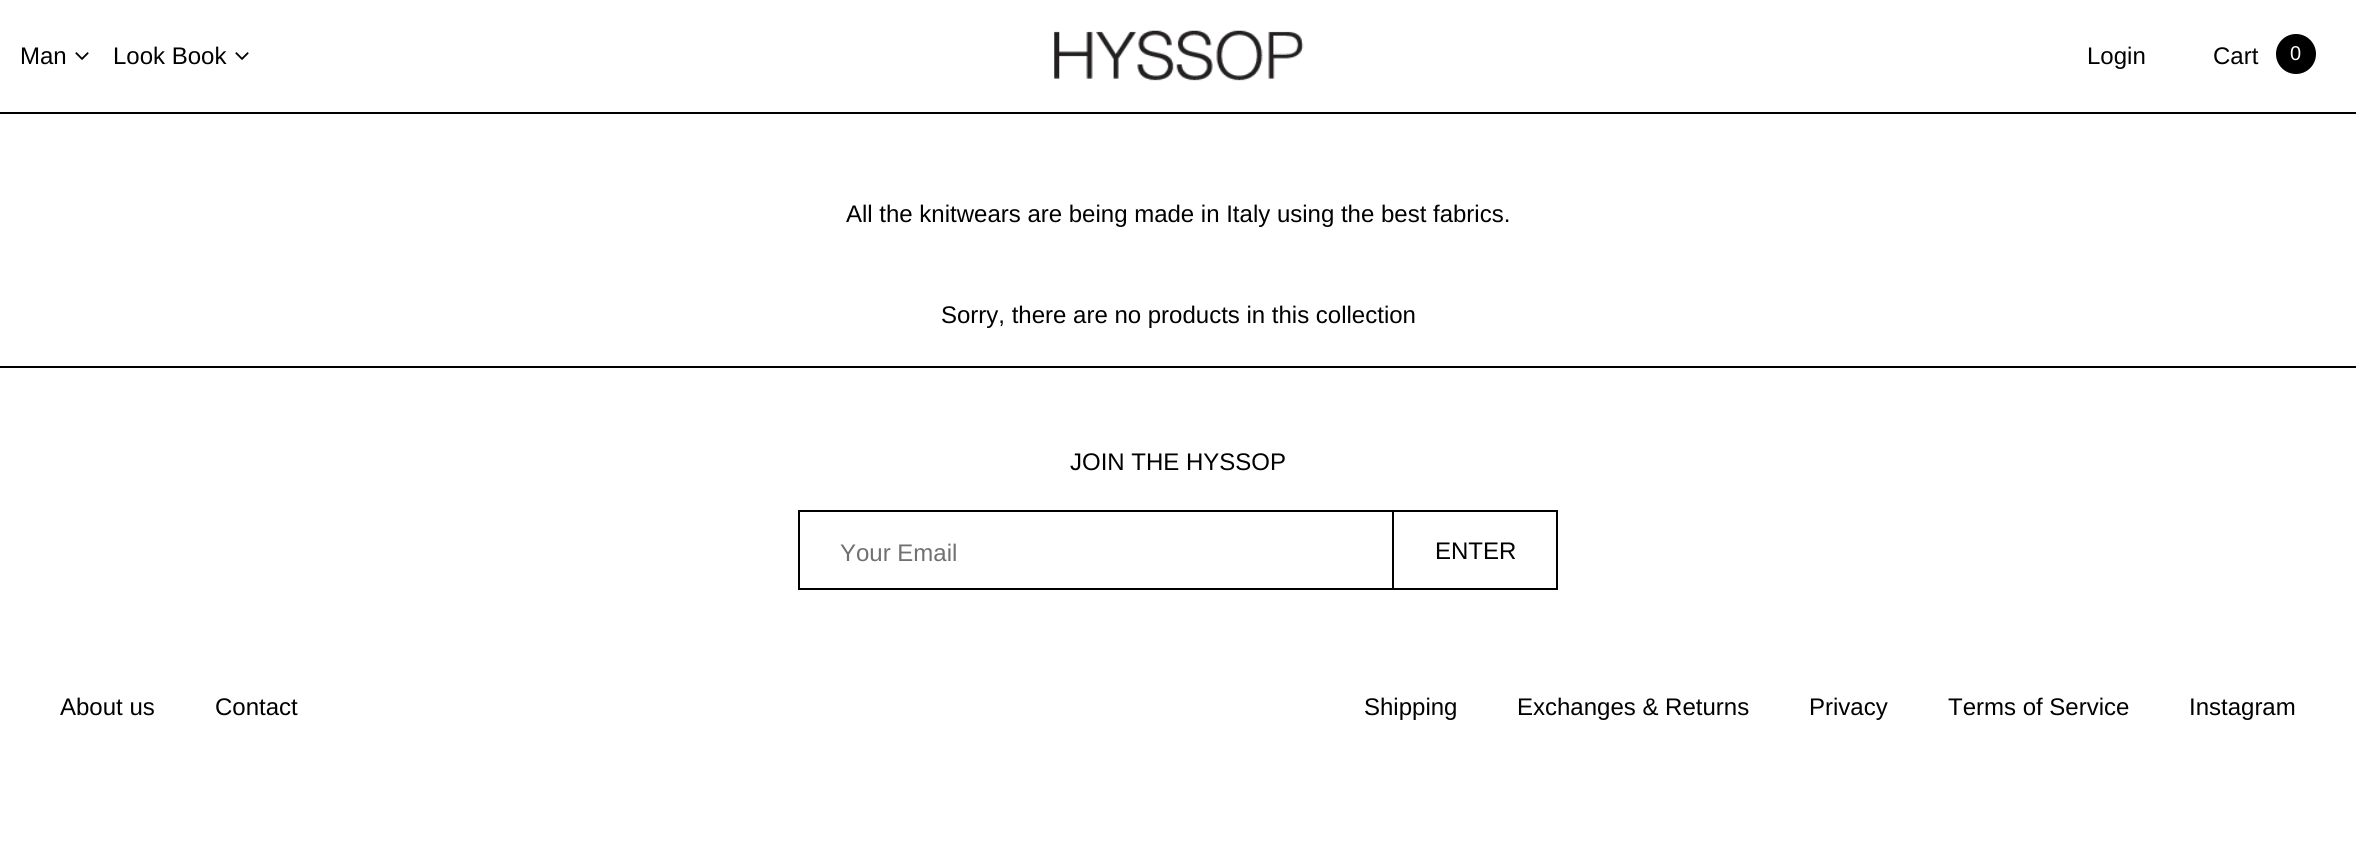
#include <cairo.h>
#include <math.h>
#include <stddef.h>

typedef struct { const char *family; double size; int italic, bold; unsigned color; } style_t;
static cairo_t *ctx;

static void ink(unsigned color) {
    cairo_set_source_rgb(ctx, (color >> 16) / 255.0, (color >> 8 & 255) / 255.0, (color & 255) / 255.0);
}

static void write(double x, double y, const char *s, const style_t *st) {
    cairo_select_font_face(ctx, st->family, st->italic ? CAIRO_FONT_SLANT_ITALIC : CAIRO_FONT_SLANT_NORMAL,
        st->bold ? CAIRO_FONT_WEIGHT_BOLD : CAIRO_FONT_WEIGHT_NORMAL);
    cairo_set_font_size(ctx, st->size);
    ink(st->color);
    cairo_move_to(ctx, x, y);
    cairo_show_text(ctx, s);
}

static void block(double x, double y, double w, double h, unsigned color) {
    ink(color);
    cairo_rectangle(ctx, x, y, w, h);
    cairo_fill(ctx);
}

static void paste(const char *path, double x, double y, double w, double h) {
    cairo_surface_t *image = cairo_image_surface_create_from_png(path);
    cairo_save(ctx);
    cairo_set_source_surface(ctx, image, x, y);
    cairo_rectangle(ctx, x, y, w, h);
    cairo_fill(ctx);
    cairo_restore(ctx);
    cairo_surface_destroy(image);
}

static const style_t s1 = {"Liberation Sans", 24, 0, 0, 0x000000};
static const style_t s2 = {"Liberation Sans", 20, 0, 0, 0xffffff};
static const style_t s3 = {"Liberation Sans", 24, 0, 0, 0x707070};

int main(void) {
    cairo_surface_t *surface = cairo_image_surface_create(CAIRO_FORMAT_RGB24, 2356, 843);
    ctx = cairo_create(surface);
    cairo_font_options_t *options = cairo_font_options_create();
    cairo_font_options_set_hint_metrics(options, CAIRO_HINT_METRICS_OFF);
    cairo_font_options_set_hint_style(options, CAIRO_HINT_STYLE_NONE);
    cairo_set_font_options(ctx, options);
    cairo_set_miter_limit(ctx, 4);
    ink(0xffffff);
    cairo_paint(ctx);
    block(0, 112, 2356, 2, 0x000000);
    write(20, 64, "Man", &s1);
    paste("pic1.png", 75, 52, 14, 8);
    write(113, 64, "Look Book", &s1);
    paste("pic1.png", 235, 52, 14, 8);
    paste("pic2.png", 1054, 30, 250, 51);
    write(2087, 64, "Login", &s1);
    write(2213, 64, "Cart", &s1);
    cairo_new_path(ctx);
    cairo_arc(ctx, 2296, 54, 20, 0, 2 * M_PI);
    cairo_fill(ctx);
    write(2290, 60, "0", &s2);
    write(846, 222, "All the knitwears are being made in Italy using the best fabrics.", &s1);
    write(941, 323, "Sorry, there are no products in this collection", &s1);
    block(0, 366, 2356, 2, 0x000000);
    write(1070, 470, "JOIN THE HYSSOP", &s1);
    cairo_rectangle(ctx, 799, 511, 758, 78);
    cairo_stroke(ctx);
    write(840, 561, "Your Email", &s3);
    cairo_rectangle(ctx, 1393, 511, 164, 78);
    ink(0x000000);
    cairo_stroke(ctx);
    write(1435, 559, "ENTER", &s1);
    write(60, 715, "About us", &s1);
    write(215, 715, "Contact", &s1);
    write(1364, 715, "Shipping", &s1);
    write(1517, 715, "Exchanges & Returns", &s1);
    write(1809, 715, "Privacy", &s1);
    write(1948, 715, "Terms of Service", &s1);
    write(2189, 715, "Instagram", &s1);
    cairo_surface_write_to_png(surface, "screenshot.png");
    cairo_font_options_destroy(options);
    cairo_destroy(ctx);
    cairo_surface_destroy(surface);
    return 0;
}
